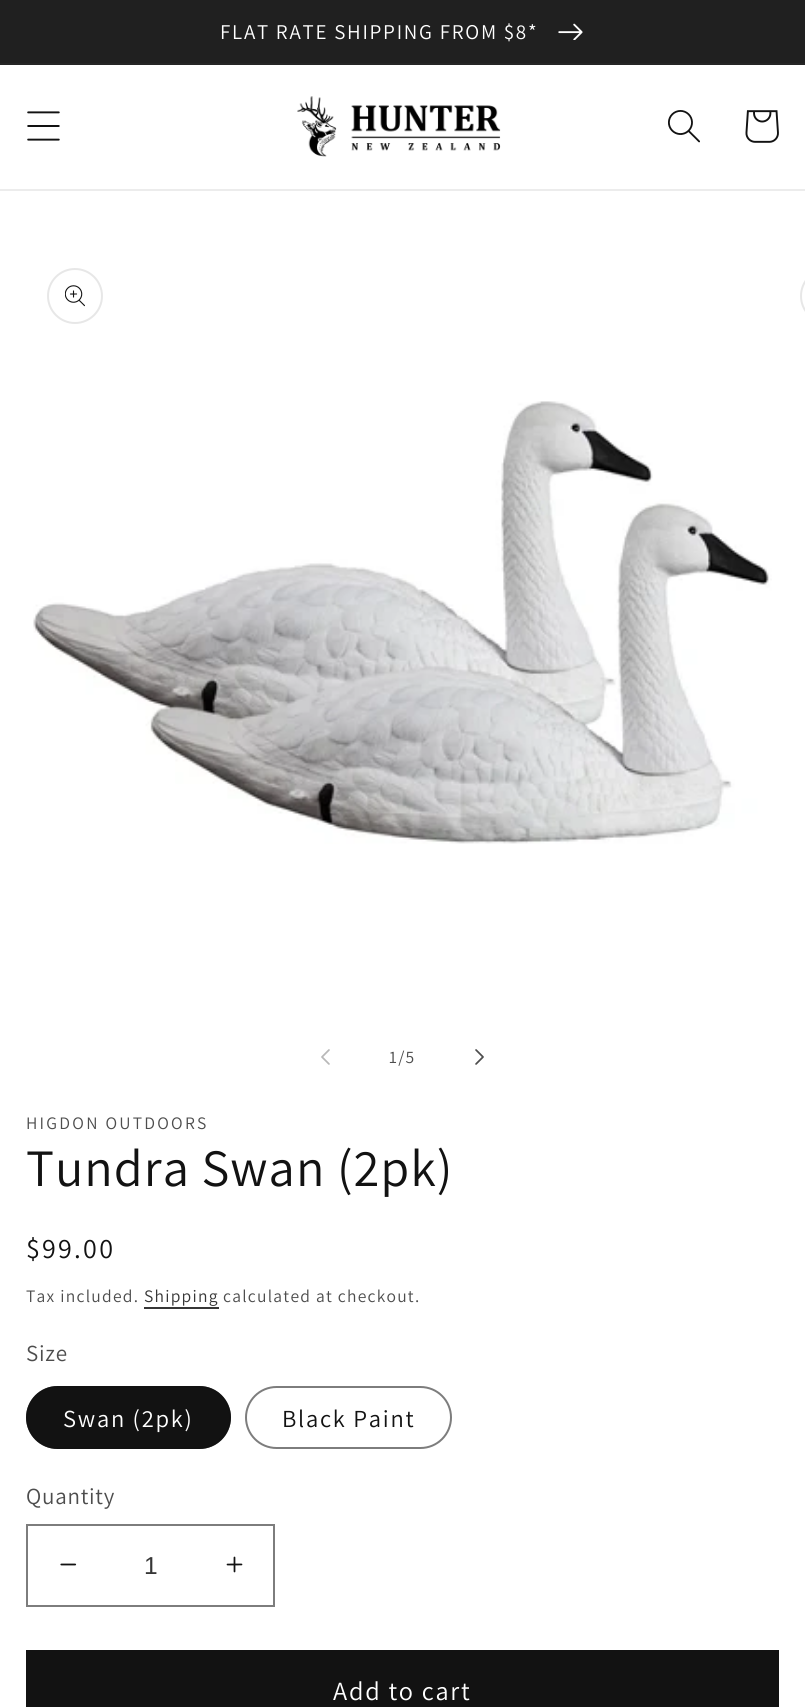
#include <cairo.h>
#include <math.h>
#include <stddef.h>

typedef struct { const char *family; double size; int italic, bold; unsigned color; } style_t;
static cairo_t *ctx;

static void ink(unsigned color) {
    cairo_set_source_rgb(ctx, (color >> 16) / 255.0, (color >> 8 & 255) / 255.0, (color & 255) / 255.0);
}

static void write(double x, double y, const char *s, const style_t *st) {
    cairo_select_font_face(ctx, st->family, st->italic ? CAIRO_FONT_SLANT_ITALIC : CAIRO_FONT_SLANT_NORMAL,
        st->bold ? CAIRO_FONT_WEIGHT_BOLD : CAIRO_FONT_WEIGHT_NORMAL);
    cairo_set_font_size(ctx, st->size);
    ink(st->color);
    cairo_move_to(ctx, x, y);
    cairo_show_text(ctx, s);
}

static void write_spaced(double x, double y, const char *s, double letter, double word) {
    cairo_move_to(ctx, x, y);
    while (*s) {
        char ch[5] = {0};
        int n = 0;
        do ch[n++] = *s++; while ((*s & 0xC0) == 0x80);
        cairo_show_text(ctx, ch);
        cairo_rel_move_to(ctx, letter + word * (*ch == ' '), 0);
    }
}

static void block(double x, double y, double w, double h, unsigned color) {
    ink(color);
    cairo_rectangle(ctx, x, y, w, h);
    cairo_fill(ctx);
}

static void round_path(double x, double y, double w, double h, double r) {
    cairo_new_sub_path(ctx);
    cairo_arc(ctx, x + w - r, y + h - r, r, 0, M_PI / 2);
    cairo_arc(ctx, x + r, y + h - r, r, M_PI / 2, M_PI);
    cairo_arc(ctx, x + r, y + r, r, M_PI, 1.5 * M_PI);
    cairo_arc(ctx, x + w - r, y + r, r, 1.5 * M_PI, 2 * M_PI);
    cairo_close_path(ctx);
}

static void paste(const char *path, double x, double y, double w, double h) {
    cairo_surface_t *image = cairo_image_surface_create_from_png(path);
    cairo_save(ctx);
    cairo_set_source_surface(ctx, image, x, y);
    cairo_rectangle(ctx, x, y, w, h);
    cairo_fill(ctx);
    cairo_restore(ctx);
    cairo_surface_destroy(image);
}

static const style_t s1 = {"Liberation Sans", 24.5, 0, 0, 0x363636};

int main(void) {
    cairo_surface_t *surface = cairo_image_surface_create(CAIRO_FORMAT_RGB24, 805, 1707);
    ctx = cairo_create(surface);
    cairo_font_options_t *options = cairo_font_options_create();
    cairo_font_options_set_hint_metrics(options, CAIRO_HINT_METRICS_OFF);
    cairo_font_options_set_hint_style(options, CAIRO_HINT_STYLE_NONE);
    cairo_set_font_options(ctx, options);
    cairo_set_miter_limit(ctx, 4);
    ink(0xffffff);
    cairo_paint(ctx);
    block(0, 63, 805, 2, 0x252525);
    block(0, 0, 805, 63, 0x202020);
    cairo_select_font_face(ctx, "Assistant", CAIRO_FONT_SLANT_NORMAL, CAIRO_FONT_WEIGHT_NORMAL);
    cairo_set_font_size(ctx, 21);
    ink(0xffffff);
    write_spaced(220, 39, "FLAT RATE SHIPPING FROM $8*", 1.75, 0);
    paste("pic1.png", 558, 23, 25, 17);
    block(0, 189, 805, 2, 0xececec);
    paste("pic2.png", 27, 111, 33, 30);
    paste("pic3.png", 297, 96, 204, 61);
    paste("pic4.png", 668, 110, 32, 33);
    paste("pic5.png", 745, 110, 34, 33);
    cairo_arc(ctx, 75, 296, 27, 0, 2 * M_PI);
    ink(0xe7e7e7);
    cairo_stroke(ctx);
    paste("pic6.png", 65, 285, 20, 22);
    paste("pic7.png", 33, 401, 739, 443);
    round_path(801, 269, 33, 54, 27);
    cairo_stroke(ctx);
    paste("pic8.png", 321, 1049, 9, 16);
    cairo_set_font_size(ctx, 17.5);
    ink(0x4d4d4d);
    write_spaced(389, 1063, "1/5", 1.25, 0);
    paste("pic9.png", 475, 1049, 9, 16);
    write_spaced(26, 1129, "HIGDON OUTDOORS", 2.25, 0);
    cairo_set_font_size(ctx, 52.5);
    ink(0x121212);
    write_spaced(26, 1186, "Tundra Swan (2pk)", 1, 0);
    cairo_set_font_size(ctx, 28);
    write_spaced(26, 1258, "$99.00", 2.25, 0);
    cairo_set_font_size(ctx, 17.5);
    ink(0x4d4d4d);
    write_spaced(26, 1302, "Tax included.", 1.25, 0);
    ink(0x363636);
    write_spaced(144, 1302, "Shipping", 1.25, 0);
    block(144, 1307, 75, 2, 0x363636);
    ink(0x4d4d4d);
    write_spaced(223, 1302, "calculated at checkout.", 1.25, 0);
    cairo_set_font_size(ctx, 23);
    write_spaced(26, 1361, "Size", 0.75, 0);
    ink(0x121212);
    round_path(26, 1386, 205, 63, 31.5);
    cairo_fill(ctx);
    round_path(27, 1387, 203, 61, 30.5);
    cairo_set_source_rgba(ctx, 0.071, 0.071, 0.071, 0.55);
    cairo_stroke(ctx);
    cairo_set_font_size(ctx, 24.5);
    ink(0xffffff);
    write_spaced(63, 1427, "Swan (2pk)", 1.75, 0);
    round_path(246, 1387, 205, 61, 30.5);
    ink(0x7d7d7d);
    cairo_stroke(ctx);
    ink(0x121212);
    write_spaced(282, 1427, "Black Paint", 1.75, 0);
    cairo_set_font_size(ctx, 23);
    ink(0x4d4d4d);
    write_spaced(26, 1504, "Quantity", 0.75, 0);
    paste("pic10.png", 60, 1563, 17, 3);
    paste("pic11.png", 226, 1556, 17, 17);
    cairo_rectangle(ctx, 27, 1525, 247, 81);
    ink(0x7d7d7d);
    cairo_stroke(ctx);
    write(144, 1574, "1", &s1);
    block(26, 1650, 753, 57, 0x121212);
    cairo_select_font_face(ctx, "Assistant", CAIRO_FONT_SLANT_NORMAL, CAIRO_FONT_WEIGHT_NORMAL);
    cairo_set_font_size(ctx, 26.25);
    ink(0xffffff);
    write_spaced(333, 1700, "Add to cart", 1.75, 0);
    cairo_surface_write_to_png(surface, "screenshot.png");
    cairo_font_options_destroy(options);
    cairo_destroy(ctx);
    cairo_surface_destroy(surface);
    return 0;
}
